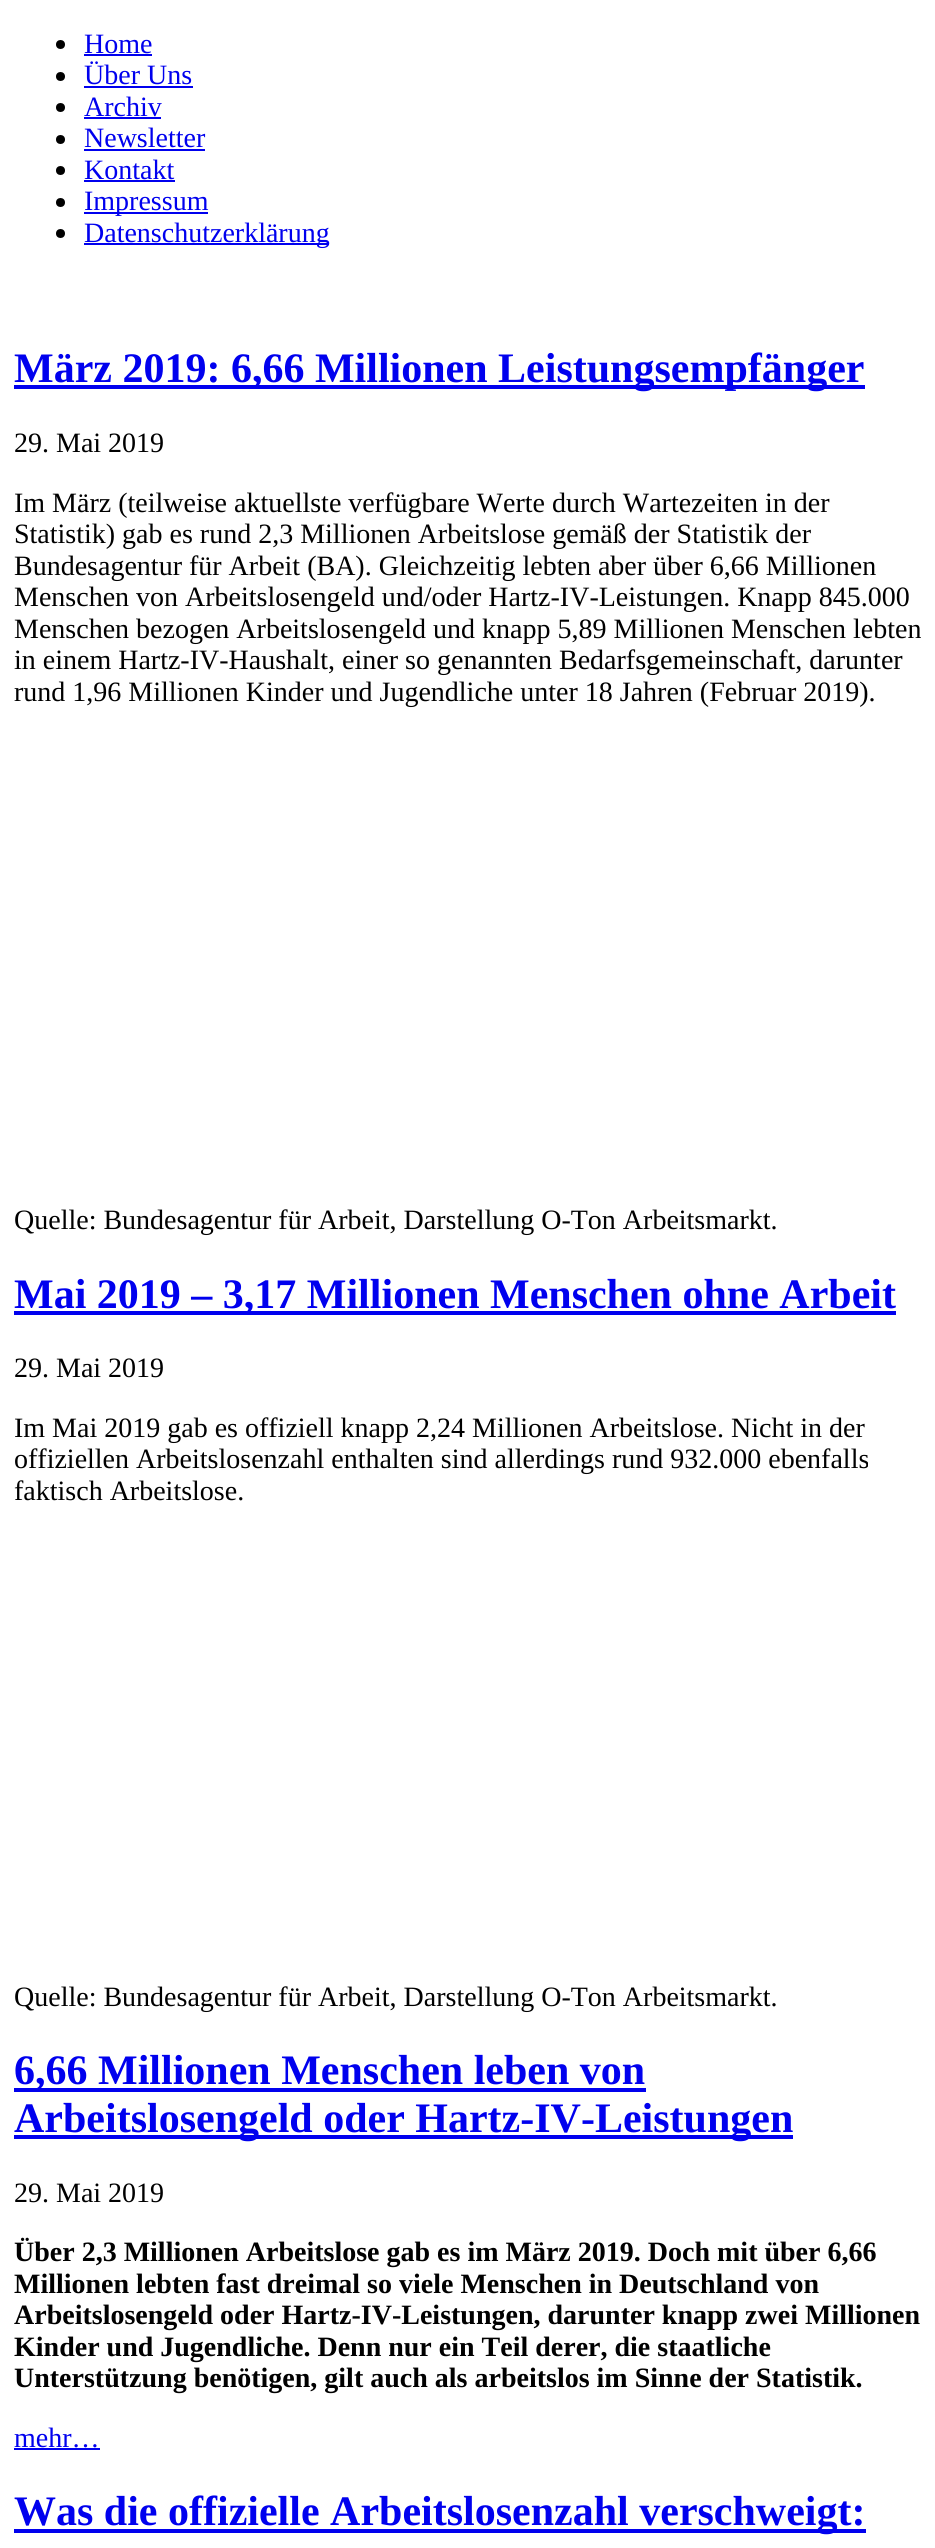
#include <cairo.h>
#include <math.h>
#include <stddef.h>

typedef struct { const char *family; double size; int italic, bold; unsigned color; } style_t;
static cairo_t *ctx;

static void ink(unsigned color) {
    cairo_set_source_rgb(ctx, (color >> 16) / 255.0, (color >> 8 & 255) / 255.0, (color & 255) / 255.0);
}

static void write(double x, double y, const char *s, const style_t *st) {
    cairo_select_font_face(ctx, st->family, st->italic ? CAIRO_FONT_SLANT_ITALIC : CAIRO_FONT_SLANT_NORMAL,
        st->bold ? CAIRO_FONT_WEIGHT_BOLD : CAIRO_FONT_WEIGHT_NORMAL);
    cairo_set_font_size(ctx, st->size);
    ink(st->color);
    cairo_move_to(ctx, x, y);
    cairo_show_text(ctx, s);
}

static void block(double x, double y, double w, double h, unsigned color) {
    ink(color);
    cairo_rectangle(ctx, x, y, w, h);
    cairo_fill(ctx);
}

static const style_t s1 = {"Liberation Serif", 28, 0, 0, 0x0000ee};
static const style_t s2 = {"Liberation Serif", 42, 0, 1, 0x0000ee};
static const style_t s3 = {"Liberation Serif", 28, 0, 0, 0x000000};
static const style_t s4 = {"Liberation Serif", 28, 0, 1, 0x000000};

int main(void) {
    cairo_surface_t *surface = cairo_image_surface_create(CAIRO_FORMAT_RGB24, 935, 2548);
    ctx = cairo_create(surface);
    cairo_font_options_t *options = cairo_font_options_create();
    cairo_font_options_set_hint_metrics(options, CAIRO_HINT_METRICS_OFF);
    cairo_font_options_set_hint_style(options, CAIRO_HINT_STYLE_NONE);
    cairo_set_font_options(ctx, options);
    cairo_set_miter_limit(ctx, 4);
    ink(0xffffff);
    cairo_paint(ctx);
    ink(0x000000);
    cairo_arc(ctx, 60.5, 44.5, 4.5, 0, 2 * M_PI);
    cairo_fill(ctx);
    write(84, 53, "Home", &s1);
    block(84, 54, 68, 2, 0x0000ee);
    ink(0x000000);
    cairo_new_path(ctx);
    cairo_arc(ctx, 60.5, 76.5, 4.5, 0, 2 * M_PI);
    cairo_fill(ctx);
    write(84, 84, "Über Uns", &s1);
    block(84, 86, 109, 2, 0x0000ee);
    ink(0x000000);
    cairo_new_path(ctx);
    cairo_arc(ctx, 60.5, 107.5, 4.5, 0, 2 * M_PI);
    cairo_fill(ctx);
    write(84, 116, "Archiv", &s1);
    block(84, 117, 77, 2, 0x0000ee);
    ink(0x000000);
    cairo_new_path(ctx);
    cairo_arc(ctx, 60.5, 139.5, 4.5, 0, 2 * M_PI);
    cairo_fill(ctx);
    write(84, 147, "Newsletter", &s1);
    block(84, 149, 121, 2, 0x0000ee);
    ink(0x000000);
    cairo_new_path(ctx);
    cairo_arc(ctx, 60.5, 170.5, 4.5, 0, 2 * M_PI);
    cairo_fill(ctx);
    write(84, 179, "Kontakt", &s1);
    block(84, 180, 91, 2, 0x0000ee);
    ink(0x000000);
    cairo_new_path(ctx);
    cairo_arc(ctx, 60.5, 202.5, 4.5, 0, 2 * M_PI);
    cairo_fill(ctx);
    block(84, 212, 124, 2, 0x0000ee);
    write(84, 210, "Impressum", &s1);
    ink(0x000000);
    cairo_new_path(ctx);
    cairo_arc(ctx, 60.5, 233.5, 4.5, 0, 2 * M_PI);
    cairo_fill(ctx);
    block(84, 243, 245, 2, 0x0000ee);
    write(84, 242, "Datenschutzerklärung", &s1);
    block(14, 385, 851, 4, 0x0000ee);
    write(14, 382, "März 2019: 6,66 Millionen Leistungsempfänger", &s2);
    write(14, 452, "29. Mai 2019", &s3);
    write(14, 512, "Im März (teilweise aktuellste verfügbare Werte durch Wartezeiten in der", &s3);
    write(14, 543, "Statistik) gab es rund 2,3 Millionen Arbeitslose gemäß der Statistik der", &s3);
    write(14, 575, "Bundesagentur für Arbeit (BA). Gleichzeitig lebten aber über 6,66 Millionen", &s3);
    write(14, 606, "Menschen von Arbeitslosengeld und/oder Hartz-IV-Leistungen. Knapp 845.000", &s3);
    write(14, 638, "Menschen bezogen Arbeitslosengeld und knapp 5,89 Millionen Menschen lebten", &s3);
    write(14, 669, "in einem Hartz-IV-Haushalt, einer so genannten Bedarfsgemeinschaft, darunter", &s3);
    write(14, 701, "rund 1,96 Millionen Kinder und Jugendliche unter 18 Jahren (Februar 2019).", &s3);
    write(14, 1229, "Quelle: Bundesagentur für Arbeit, Darstellung O-Ton Arbeitsmarkt.", &s3);
    block(14, 1311, 882, 4, 0x0000ee);
    write(14, 1308, "Mai 2019 – 3,17 Millionen Menschen ohne Arbeit", &s2);
    write(14, 1377, "29. Mai 2019", &s3);
    write(14, 1437, "Im Mai 2019 gab es offiziell knapp 2,24 Millionen Arbeitslose. Nicht in der", &s3);
    write(14, 1468, "offiziellen Arbeitslosenzahl enthalten sind allerdings rund 932.000 ebenfalls", &s3);
    write(14, 1500, "faktisch Arbeitslose.", &s3);
    write(14, 2006, "Quelle: Bundesagentur für Arbeit, Darstellung O-Ton Arbeitsmarkt.", &s3);
    block(14, 2088, 632, 4, 0x0000ee);
    write(14, 2084, "6,66 Millionen Menschen leben von", &s2);
    block(14, 2135, 779, 4, 0x0000ee);
    write(14, 2132, "Arbeitslosengeld oder Hartz-IV-Leistungen", &s2);
    write(14, 2202, "29. Mai 2019", &s3);
    write(14, 2261, "Über 2,3 Millionen Arbeitslose gab es im März 2019. Doch mit über 6,66", &s4);
    write(14, 2293, "Millionen lebten fast dreimal so viele Menschen in Deutschland von", &s4);
    write(14, 2324, "Arbeitslosengeld oder Hartz-IV-Leistungen, darunter knapp zwei Millionen", &s4);
    write(14, 2356, "Kinder und Jugendliche. Denn nur ein Teil derer, die staatliche", &s4);
    write(14, 2387, "Unterstützung benötigen, gilt auch als arbeitslos im Sinne der Statistik.", &s4);
    write(14, 2447, "mehr…", &s1);
    block(14, 2448, 86, 2, 0x0000ee);
    block(14, 2529, 852, 4, 0x0000ee);
    write(14, 2525, "Was die offizielle Arbeitslosenzahl verschweigt:", &s2);
    cairo_surface_write_to_png(surface, "screenshot.png");
    cairo_font_options_destroy(options);
    cairo_destroy(ctx);
    cairo_surface_destroy(surface);
    return 0;
}
